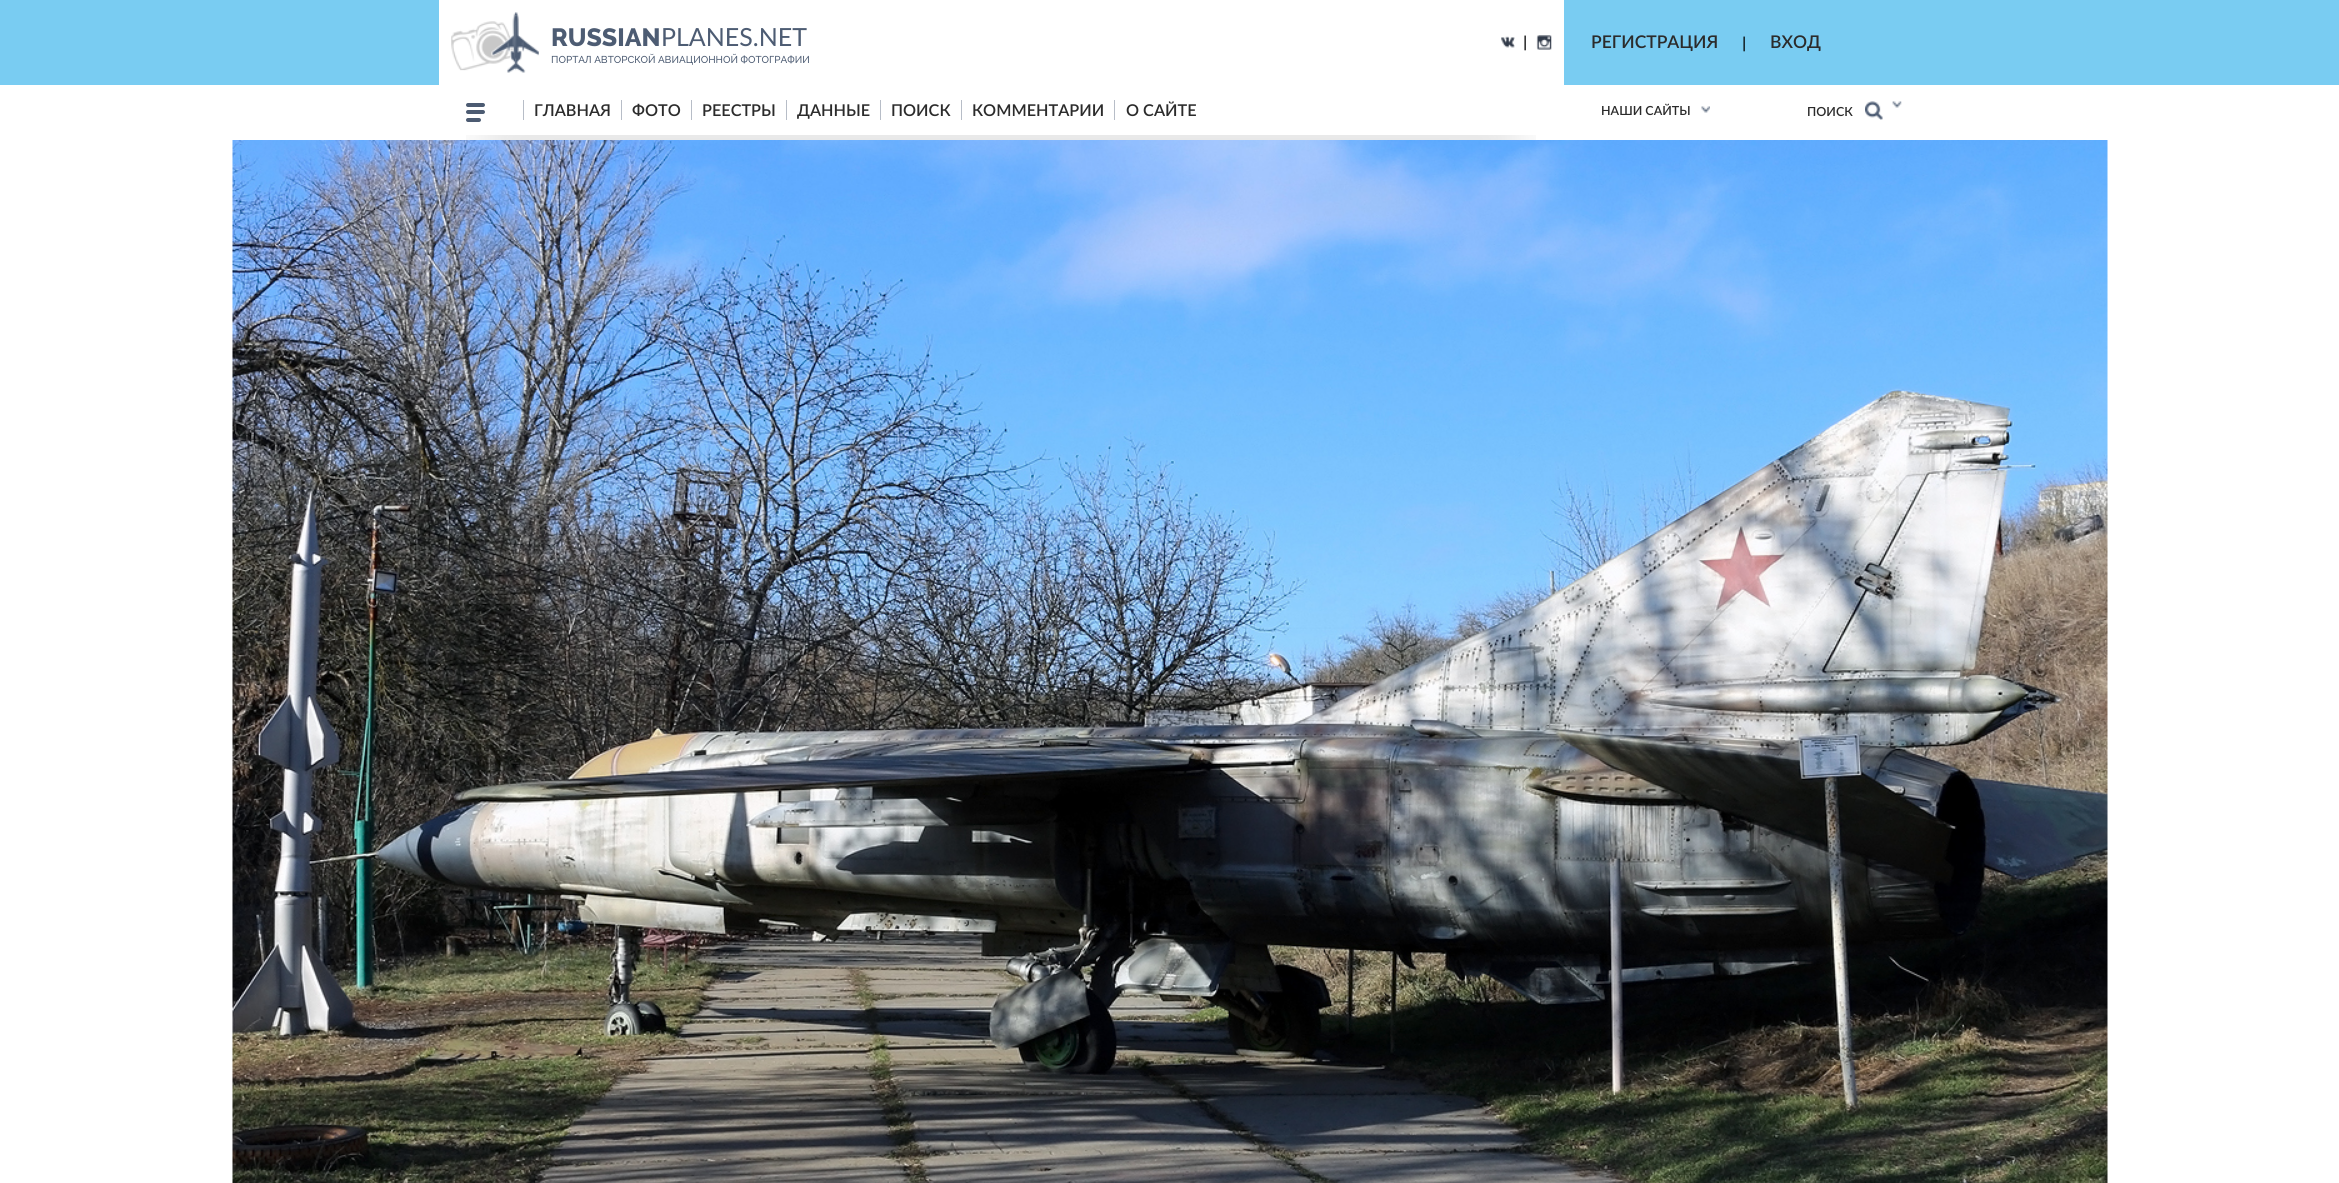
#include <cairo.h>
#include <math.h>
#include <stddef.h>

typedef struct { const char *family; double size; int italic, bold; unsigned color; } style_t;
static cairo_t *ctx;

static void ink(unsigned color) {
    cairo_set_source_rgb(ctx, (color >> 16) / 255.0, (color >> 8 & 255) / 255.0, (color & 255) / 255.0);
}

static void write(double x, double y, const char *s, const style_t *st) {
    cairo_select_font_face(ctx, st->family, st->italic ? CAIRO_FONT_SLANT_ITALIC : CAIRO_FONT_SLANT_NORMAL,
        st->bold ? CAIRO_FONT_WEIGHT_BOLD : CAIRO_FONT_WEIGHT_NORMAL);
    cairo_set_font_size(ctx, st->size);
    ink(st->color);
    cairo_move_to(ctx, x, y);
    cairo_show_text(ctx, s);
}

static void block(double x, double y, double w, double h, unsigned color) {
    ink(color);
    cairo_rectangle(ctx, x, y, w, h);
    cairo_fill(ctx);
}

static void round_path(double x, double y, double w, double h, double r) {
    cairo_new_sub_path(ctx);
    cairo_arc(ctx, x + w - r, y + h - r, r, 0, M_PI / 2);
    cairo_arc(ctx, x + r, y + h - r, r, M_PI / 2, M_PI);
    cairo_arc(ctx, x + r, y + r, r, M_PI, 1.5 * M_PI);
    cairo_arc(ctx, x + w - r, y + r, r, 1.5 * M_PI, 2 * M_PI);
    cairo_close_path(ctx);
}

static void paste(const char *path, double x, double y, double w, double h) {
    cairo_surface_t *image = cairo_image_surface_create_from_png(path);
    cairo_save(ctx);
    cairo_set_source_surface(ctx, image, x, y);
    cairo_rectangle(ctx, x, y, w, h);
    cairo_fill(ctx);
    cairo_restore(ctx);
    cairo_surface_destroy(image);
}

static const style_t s1 = {"Raleway ExtraBold", 25, 0, 0, 0x4d5c73};
static const style_t s2 = {"Lato", 25, 0, 0, 0x4d5c73};
static const style_t s3 = {"Raleway Medium", 10, 0, 0, 0x4d5c73};
static const style_t s4 = {"Roboto", 17.5, 0, 0, 0x000000};
static const style_t s5 = {"Lato SemiBold", 17.5, 0, 0, 0x2b2b2b};
static const style_t s6 = {"Lato SemiBold", 16.25, 0, 0, 0x2b2b2b};
static const style_t s7 = {"Lato SemiBold", 12.5, 0, 0, 0x2b2b2b};

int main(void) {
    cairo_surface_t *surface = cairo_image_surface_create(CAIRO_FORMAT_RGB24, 2339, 1183);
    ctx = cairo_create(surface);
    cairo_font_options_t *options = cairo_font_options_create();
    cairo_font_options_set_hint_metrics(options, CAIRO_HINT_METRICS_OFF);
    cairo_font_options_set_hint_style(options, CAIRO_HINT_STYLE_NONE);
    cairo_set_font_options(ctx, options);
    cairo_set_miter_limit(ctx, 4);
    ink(0xffffff);
    cairo_paint(ctx);
    block(0, 0, 2339, 85, 0x79ccf2);
    block(439, 0, 1125, 85, 0xffffff);
    paste("pic1.png", 451, 12, 88, 61);
    write(551, 46, "RUSSIAN", &s1);
    write(661, 46, "PLANES.NET", &s2);
    write(551, 63, "ПОРТАЛ АВТОРСКОЙ АВИАЦИОННОЙ ФОТОГРАФИИ", &s3);
    paste("pic2.png", 1501, 36, 14, 12);
    write(1523, 48, "|", &s4);
    paste("pic3.png", 1536, 35, 16, 15);
    write(1591, 48, "РЕГИСТРАЦИЯ", &s5);
    write(1742, 49, "|", &s4);
    write(1770, 48, "ВХОД", &s5);
    ink(0x4c5b72);
    round_path(466, 103, 19, 4, 2);
    cairo_fill(ctx);
    round_path(466, 110, 19, 4, 2);
    cairo_fill(ctx);
    round_path(466, 118, 15, 4, 2);
    cairo_fill(ctx);
    block(523, 100, 1, 20, 0xb7bdc7);
    write(534, 116, "ГЛАВНАЯ", &s6);
    block(621, 100, 1, 20, 0xb7bdc7);
    write(632, 116, "ФОТО", &s6);
    block(691, 100, 1, 20, 0xb7bdc7);
    write(702, 116, "РЕЕСТРЫ", &s6);
    block(786, 100, 1, 20, 0xb7bdc7);
    write(797, 116, "ДАННЫЕ", &s6);
    block(880, 100, 1, 20, 0xb7bdc7);
    write(891, 116, "ПОИСК", &s6);
    block(961, 100, 1, 20, 0xb7bdc7);
    write(972, 116, "КОММЕНТАРИИ", &s6);
    block(1114, 100, 1, 20, 0xb7bdc7);
    write(1126, 116, "О САЙТЕ", &s6);
    paste("pic4.png", 466, 135, 1070, 5);
    write(1601, 115, "НАШИ САЙТЫ", &s7);
    paste("pic5.png", 1701, 106, 9, 7);
    paste("pic6.png", 1865, 101, 18, 19);
    paste("pic7.png", 1892, 101, 10, 7);
    write(1807, 116, "ПОИСК", &s7);
    paste("pic8.png", 232, 140, 1876, 1043);
    cairo_surface_write_to_png(surface, "screenshot.png");
    cairo_font_options_destroy(options);
    cairo_destroy(ctx);
    cairo_surface_destroy(surface);
    return 0;
}
